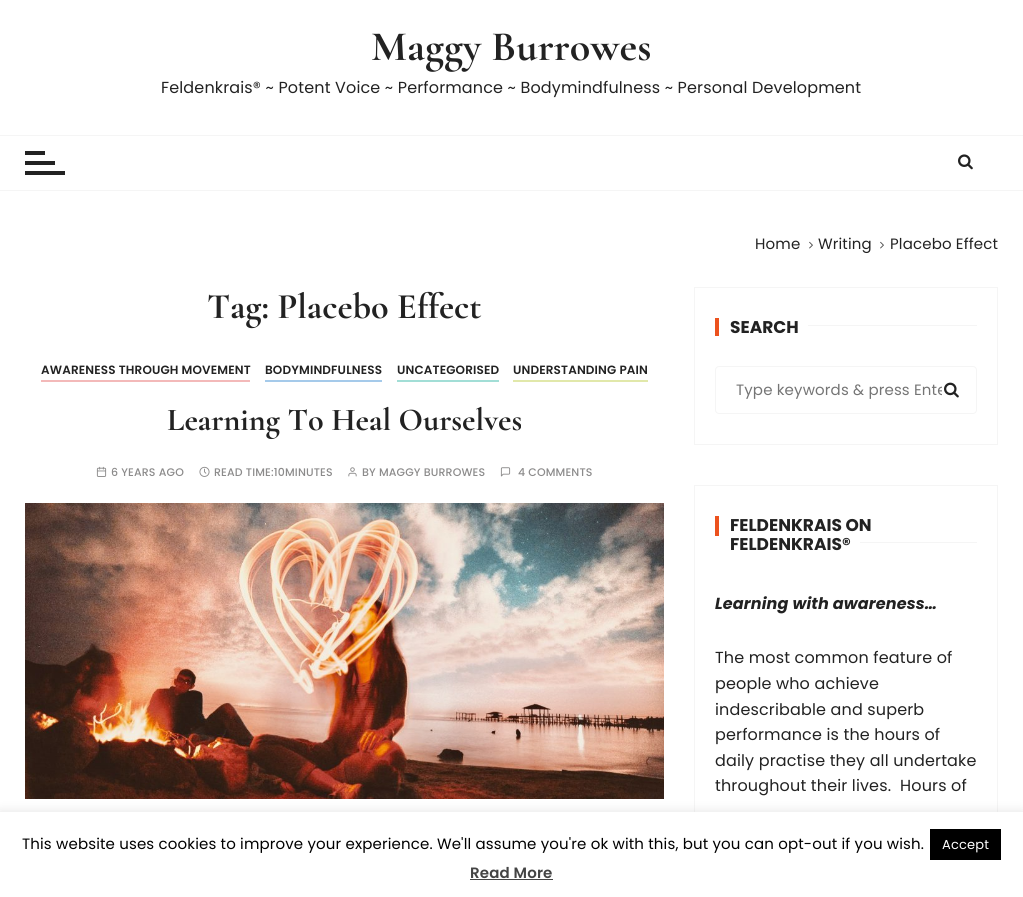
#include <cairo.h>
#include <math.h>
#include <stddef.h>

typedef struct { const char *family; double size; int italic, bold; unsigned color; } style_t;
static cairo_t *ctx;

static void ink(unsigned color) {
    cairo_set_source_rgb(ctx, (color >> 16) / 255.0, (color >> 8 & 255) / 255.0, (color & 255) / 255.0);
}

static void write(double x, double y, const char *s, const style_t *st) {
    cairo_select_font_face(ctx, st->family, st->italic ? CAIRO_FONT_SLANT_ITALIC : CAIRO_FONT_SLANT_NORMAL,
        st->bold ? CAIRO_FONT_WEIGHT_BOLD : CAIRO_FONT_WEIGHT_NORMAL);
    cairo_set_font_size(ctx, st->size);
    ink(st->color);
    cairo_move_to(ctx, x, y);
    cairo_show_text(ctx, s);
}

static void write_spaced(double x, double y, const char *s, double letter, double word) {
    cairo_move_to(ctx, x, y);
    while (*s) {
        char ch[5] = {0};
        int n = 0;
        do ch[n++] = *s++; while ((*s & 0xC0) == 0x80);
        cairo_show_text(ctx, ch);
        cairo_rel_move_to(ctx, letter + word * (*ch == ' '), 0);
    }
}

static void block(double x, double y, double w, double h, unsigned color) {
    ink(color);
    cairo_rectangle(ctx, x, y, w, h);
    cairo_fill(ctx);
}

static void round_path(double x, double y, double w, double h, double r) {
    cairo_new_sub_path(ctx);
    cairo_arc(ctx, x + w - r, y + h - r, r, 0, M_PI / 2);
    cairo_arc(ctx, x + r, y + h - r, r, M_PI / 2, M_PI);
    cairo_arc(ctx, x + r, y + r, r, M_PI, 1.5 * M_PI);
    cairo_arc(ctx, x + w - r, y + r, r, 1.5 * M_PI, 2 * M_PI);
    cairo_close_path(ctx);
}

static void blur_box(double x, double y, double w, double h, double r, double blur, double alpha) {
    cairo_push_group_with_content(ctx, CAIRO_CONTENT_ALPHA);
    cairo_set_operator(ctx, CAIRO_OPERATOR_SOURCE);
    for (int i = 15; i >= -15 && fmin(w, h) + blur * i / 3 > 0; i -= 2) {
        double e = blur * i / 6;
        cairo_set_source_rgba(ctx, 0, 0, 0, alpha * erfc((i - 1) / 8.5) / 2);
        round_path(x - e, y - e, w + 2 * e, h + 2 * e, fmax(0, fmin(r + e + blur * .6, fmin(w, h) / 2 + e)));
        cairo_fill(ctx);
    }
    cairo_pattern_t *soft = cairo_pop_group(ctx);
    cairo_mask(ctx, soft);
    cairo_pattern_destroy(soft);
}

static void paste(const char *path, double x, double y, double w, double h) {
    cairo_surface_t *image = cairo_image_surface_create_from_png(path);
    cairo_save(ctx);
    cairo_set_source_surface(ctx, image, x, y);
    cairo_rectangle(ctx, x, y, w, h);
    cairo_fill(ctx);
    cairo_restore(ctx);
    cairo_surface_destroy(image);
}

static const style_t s1 = {"Cormorant Garamond", 36, 0, 1, 0x222222};
static const style_t s2 = {"Cormorant Garamond", 32, 0, 1, 0x222222};
static const style_t s3 = {"Poppins", 17, 0, 1, 0x222222};

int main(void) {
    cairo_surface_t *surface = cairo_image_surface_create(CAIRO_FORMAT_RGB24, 1023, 897);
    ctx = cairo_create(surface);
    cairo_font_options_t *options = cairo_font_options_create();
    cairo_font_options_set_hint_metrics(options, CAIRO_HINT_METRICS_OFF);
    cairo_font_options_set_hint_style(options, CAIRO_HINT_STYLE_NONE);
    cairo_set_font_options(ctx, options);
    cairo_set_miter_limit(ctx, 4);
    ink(0xffffff);
    cairo_paint(ctx);
    cairo_select_font_face(ctx, "Cormorant Garamond", CAIRO_FONT_SLANT_NORMAL, CAIRO_FONT_WEIGHT_BOLD);
    cairo_set_font_size(ctx, 42);
    ink(0x222222);
    write_spaced(371, 60, "Maggy Burrowes", 0.15, 0);
    cairo_select_font_face(ctx, "Poppins", CAIRO_FONT_SLANT_NORMAL, CAIRO_FONT_WEIGHT_NORMAL);
    cairo_set_font_size(ctx, 16);
    write_spaced(161, 93, "Feldenkrais® ~ Potent Voice ~ Performance ~ Bodymindfulness ~ Personal Development", 0.15, 0);
    block(0, 135, 1023, 1, 0xf5f5f5);
    block(0, 190, 1023, 1, 0xf5f5f5);
    block(25, 151, 20, 4, 0x222222);
    block(25, 161, 30, 4, 0x222222);
    block(25, 171, 40, 4, 0x222222);
    paste("pic1.png", 958, 154, 15, 16);
    cairo_set_font_size(ctx, 15);
    write_spaced(755, 249, "Home", 0.15, 0);
    paste("pic2.png", 809, 241, 4, 8);
    write_spaced(818, 249, "Writing", 0.15, 0);
    paste("pic2.png", 880, 241, 4, 8);
    write_spaced(890, 249, "Placebo Effect", 0.15, 0);
    write(207, 318, "Tag: Placebo Effect", &s1);
    cairo_select_font_face(ctx, "Poppins SemiBold", CAIRO_FONT_SLANT_NORMAL, CAIRO_FONT_WEIGHT_NORMAL);
    cairo_set_font_size(ctx, 12);
    write_spaced(41, 374, "AWARENESS THROUGH MOVEMENT", 0.15, 0);
    block(41, 380, 209, 2, 0xf3b9b9);
    ink(0x222222);
    write_spaced(265, 374, "BODYMINDFULNESS", 0.15, 0);
    block(265, 380, 117, 2, 0xa5caea);
    ink(0x222222);
    write_spaced(397, 374, "UNCATEGORISED", 0.15, 0);
    block(397, 380, 102, 2, 0xa2ded6);
    ink(0x222222);
    write_spaced(513, 374, "UNDERSTANDING PAIN", 0.15, 0);
    block(513, 380, 135, 2, 0xe1e8aa);
    write(167, 430, "Learning To Heal Ourselves", &s2);
    paste("pic3.png", 96, 466, 11, 11);
    cairo_select_font_face(ctx, "Poppins Medium", CAIRO_FONT_SLANT_NORMAL, CAIRO_FONT_WEIGHT_NORMAL);
    cairo_set_font_size(ctx, 11);
    ink(0x8c8b8b);
    write_spaced(111, 476, "6 YEARS AGO", 0.15, 0);
    paste("pic4.png", 199, 466, 11, 11);
    write_spaced(214, 476, "READ TIME:10MINUTES", 0.15, 0);
    paste("pic5.png", 348, 467, 9, 10);
    write_spaced(362, 476, "BY MAGGY BURROWES", 0.15, 0);
    paste("pic6.png", 500, 467, 11, 10);
    write_spaced(518, 476, "4 COMMENTS", 0.15, 0);
    paste("pic7.png", 25, 503, 639, 296);
    cairo_rectangle(ctx, 694.5, 287.5, 303, 157);
    ink(0xf5f5f5);
    cairo_set_line_width(ctx, 1);
    cairo_stroke(ctx);
    block(715, 318, 4, 18, 0xec521e);
    write(730, 333, "SEARCH", &s3);
    block(808, 325, 169, 1, 0xf5f5f5);
    round_path(715.5, 366.5, 261, 47, 3.5);
    cairo_stroke(ctx);
    cairo_save(ctx);
    cairo_rectangle(ctx, 736, 378, 206, 23);
    cairo_clip(ctx);
    cairo_select_font_face(ctx, "Poppins", CAIRO_FONT_SLANT_NORMAL, CAIRO_FONT_WEIGHT_NORMAL);
    cairo_set_font_size(ctx, 15);
    ink(0x757575);
    write_spaced(736, 395, "Type keywords & press Ente", 0.15, 0);
    cairo_restore(ctx);
    paste("pic8.png", 944, 382, 15, 16);
    cairo_rectangle(ctx, 694.5, 485.5, 303, 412);
    cairo_stroke(ctx);
    block(715, 516, 4, 20, 0xec521e);
    write(730, 531, "FELDENKRAIS ON", &s3);
    write(730, 550, "FELDENKRAIS®", &s3);
    block(860, 542, 117, 1, 0xf5f5f5);
    cairo_select_font_face(ctx, "Poppins", CAIRO_FONT_SLANT_ITALIC, CAIRO_FONT_WEIGHT_BOLD);
    cairo_set_font_size(ctx, 16);
    ink(0x222222);
    write_spaced(715, 609, "Learning with awareness…", 0.15, 0);
    cairo_select_font_face(ctx, "Poppins", CAIRO_FONT_SLANT_NORMAL, CAIRO_FONT_WEIGHT_NORMAL);
    write_spaced(715, 663, "The most common feature of", 0.15, 0);
    write_spaced(715, 689, "people who achieve", 0.15, 0);
    write_spaced(715, 715, "indescribable and superb", 0.15, 0);
    write_spaced(715, 740, "performance is the hours of", 0.15, 0);
    write_spaced(715, 766, "daily practise they all undertake", 0.15, 0);
    write_spaced(715, 791, "throughout their lives.  Hours of", 0.15, 0);
    ink(0xacabab);
    blur_box(0, 811, 1023, 85, 0, 5, 0.3);
    block(0, 812, 1023, 85, 0xffffff);
    cairo_set_font_size(ctx, 15);
    ink(0x000000);
    write_spaced(22, 849, "This website uses cookies to improve your experience. We'll assume you're ok with this, but you can opt-out if you wish.", 0.15, 0);
    block(930, 829, 71, 31, 0x000000);
    cairo_set_font_size(ctx, 13);
    ink(0xffffff);
    write_spaced(942, 849, "Accept", 0.15, 0);
    cairo_select_font_face(ctx, "Poppins SemiBold", CAIRO_FONT_SLANT_NORMAL, CAIRO_FONT_WEIGHT_NORMAL);
    cairo_set_font_size(ctx, 15);
    ink(0x444444);
    write_spaced(470, 878, "Read More", 0.15, 0);
    block(470, 879, 83, 1, 0x444444);
    cairo_surface_write_to_png(surface, "screenshot.png");
    cairo_font_options_destroy(options);
    cairo_destroy(ctx);
    cairo_surface_destroy(surface);
    return 0;
}
